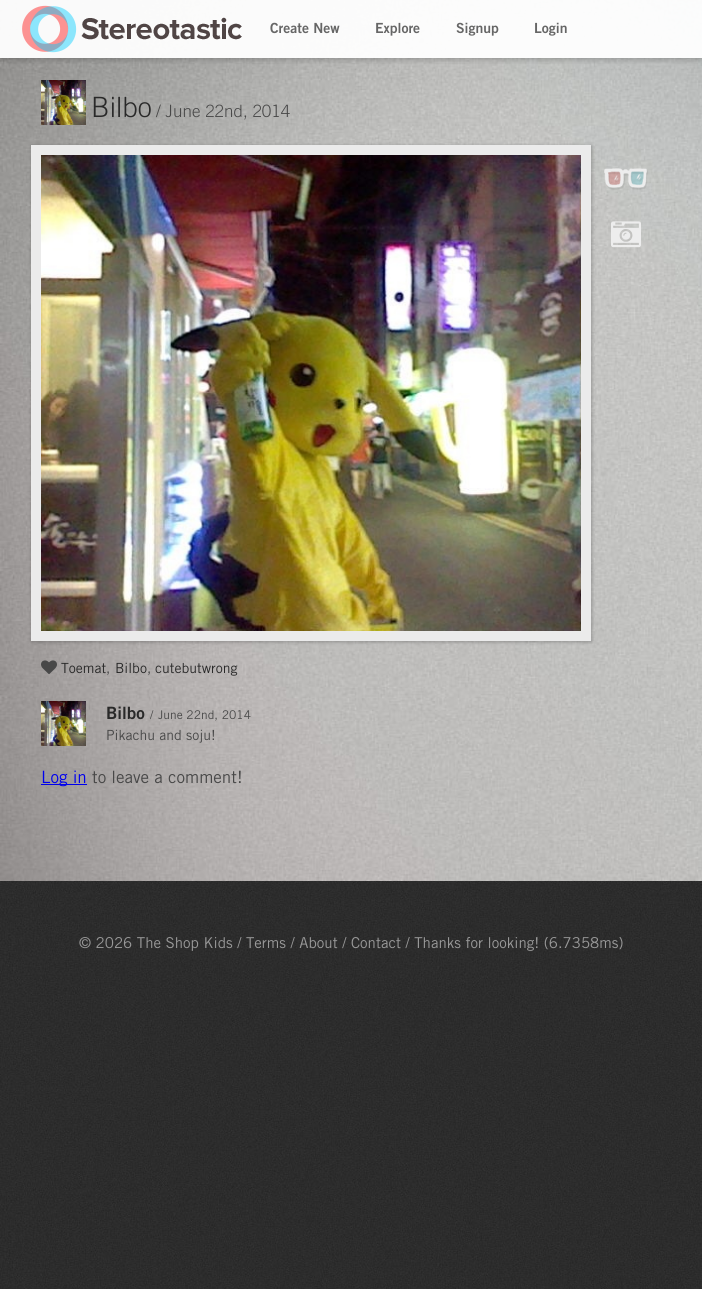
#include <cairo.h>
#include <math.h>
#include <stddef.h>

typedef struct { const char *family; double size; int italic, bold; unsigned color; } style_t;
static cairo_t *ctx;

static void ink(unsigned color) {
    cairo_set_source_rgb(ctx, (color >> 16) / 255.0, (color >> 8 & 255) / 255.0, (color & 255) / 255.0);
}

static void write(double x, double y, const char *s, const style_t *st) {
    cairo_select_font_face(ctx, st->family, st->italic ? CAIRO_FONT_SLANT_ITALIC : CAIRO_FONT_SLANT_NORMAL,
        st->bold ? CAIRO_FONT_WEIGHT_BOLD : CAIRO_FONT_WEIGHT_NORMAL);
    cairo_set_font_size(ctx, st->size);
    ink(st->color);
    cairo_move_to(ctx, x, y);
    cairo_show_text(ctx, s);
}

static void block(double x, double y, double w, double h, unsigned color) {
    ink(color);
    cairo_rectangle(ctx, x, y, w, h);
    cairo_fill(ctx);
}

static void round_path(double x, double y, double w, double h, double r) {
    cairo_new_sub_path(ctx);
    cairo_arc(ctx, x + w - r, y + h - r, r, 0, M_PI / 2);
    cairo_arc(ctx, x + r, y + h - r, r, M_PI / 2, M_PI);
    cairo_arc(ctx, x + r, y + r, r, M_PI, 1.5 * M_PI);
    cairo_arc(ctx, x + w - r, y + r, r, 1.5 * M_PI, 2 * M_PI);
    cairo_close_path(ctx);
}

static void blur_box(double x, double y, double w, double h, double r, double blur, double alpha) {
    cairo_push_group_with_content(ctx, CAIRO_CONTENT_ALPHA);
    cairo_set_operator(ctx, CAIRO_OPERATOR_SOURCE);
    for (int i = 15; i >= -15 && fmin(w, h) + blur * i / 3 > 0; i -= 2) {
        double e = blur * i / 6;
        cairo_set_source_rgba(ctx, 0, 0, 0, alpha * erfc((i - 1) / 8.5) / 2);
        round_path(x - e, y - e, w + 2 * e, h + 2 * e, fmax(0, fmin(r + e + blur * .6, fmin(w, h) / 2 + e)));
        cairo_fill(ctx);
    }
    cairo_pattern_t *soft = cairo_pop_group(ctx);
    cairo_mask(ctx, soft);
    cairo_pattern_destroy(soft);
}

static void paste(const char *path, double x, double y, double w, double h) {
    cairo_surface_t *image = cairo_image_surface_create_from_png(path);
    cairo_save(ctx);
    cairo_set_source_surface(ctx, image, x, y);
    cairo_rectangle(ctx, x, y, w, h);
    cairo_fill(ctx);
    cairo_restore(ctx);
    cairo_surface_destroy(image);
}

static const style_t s1 = {"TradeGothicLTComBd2", 14, 0, 0, 0x666666};
static const style_t s2 = {"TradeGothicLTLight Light", 28, 0, 0, 0x292929};
static const style_t s3 = {"TradeGothicLTLight Light", 17, 0, 0, 0x484848};
static const style_t s4 = {"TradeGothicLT", 14, 0, 0, 0x292929};
static const style_t s5 = {"TradeGothicLT", 14, 0, 0, 0x484848};
static const style_t s6 = {"TradeGothicLTComBd2", 17, 0, 0, 0x292929};
static const style_t s7 = {"TradeGothicLT", 12, 0, 0, 0x484848};
static const style_t s8 = {"TradeGothicLT", 17, 0, 0, 0x0000ee};
static const style_t s9 = {"TradeGothicLT", 17, 0, 0, 0x484848};
static const style_t s10 = {"TradeGothicLT", 15, 0, 0, 0x999999};

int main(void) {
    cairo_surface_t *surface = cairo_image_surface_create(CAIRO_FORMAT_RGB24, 702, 1289);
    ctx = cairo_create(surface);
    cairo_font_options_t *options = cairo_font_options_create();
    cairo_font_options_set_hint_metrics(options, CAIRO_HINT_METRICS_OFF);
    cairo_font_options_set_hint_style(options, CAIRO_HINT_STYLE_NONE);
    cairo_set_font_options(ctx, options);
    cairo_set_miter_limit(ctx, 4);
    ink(0xffffff);
    cairo_paint(ctx);
    paste("pic1.png", 0, 881, 702, 408);
    paste("pic3.png", 0, 0, 702, 881);
    cairo_save(ctx);
    cairo_rectangle(ctx, 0, 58, 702, 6);
    cairo_clip(ctx);
    ink(0x000000);
    blur_box(0, 1, 702, 58, 0, 3.5, 0.25);
    cairo_restore(ctx);
    cairo_set_source_rgba(ctx, 1, 1, 1, 0.95);
    cairo_rectangle(ctx, 0, 0, 702, 58);
    cairo_fill(ctx);
    paste("pic2.png", 22, 5, 220, 48);
    write(270, 33, "Create New", &s1);
    write(375, 33, "Explore", &s1);
    write(456, 33, "Signup", &s1);
    write(534, 33, "Login", &s1);
    paste("pic4.png", 41, 80, 45, 45);
    write(91, 117, "Bilbo", &s2);
    write(156, 117, "/ June 22nd, 2014", &s3);
    ink(0x000000);
    blur_box(32, 146, 560, 496, 0, 2, 0.25);
    cairo_rectangle(ctx, 36, 150, 550, 486);
    ink(0xebebeb);
    cairo_set_line_width(ctx, 10);
    cairo_stroke(ctx);
    paste("pic5.png", 41, 155, 540, 476);
    paste("pic6.png", 604, 168, 44, 22);
    paste("pic7.png", 611, 221, 30, 27);
    paste("pic8.png", 41, 660, 16, 14);
    write(61, 673, "Toemat", &s4);
    write(106, 673, ",", &s5);
    write(115, 673, "Bilbo", &s4);
    write(147, 673, ",", &s5);
    write(155, 673, "cutebutwrong", &s4);
    paste("pic4.png", 41, 701, 45, 45);
    write(106, 719, "Bilbo", &s6);
    write(150, 719, "/", &s7);
    write(158, 719, "June 22nd, 2014", &s7);
    write(106, 740, "Pikachu and soju!", &s5);
    block(41, 784, 46, 1, 0x0000ee);
    write(41, 783, "Log in", &s8);
    write(92, 783, "to leave a comment!", &s9);
    write(79, 948, "© 2026 The Shop Kids / Terms / About / Contact / Thanks for looking! (6.7358ms)", &s10);
    cairo_surface_write_to_png(surface, "screenshot.png");
    cairo_font_options_destroy(options);
    cairo_destroy(ctx);
    cairo_surface_destroy(surface);
    return 0;
}
